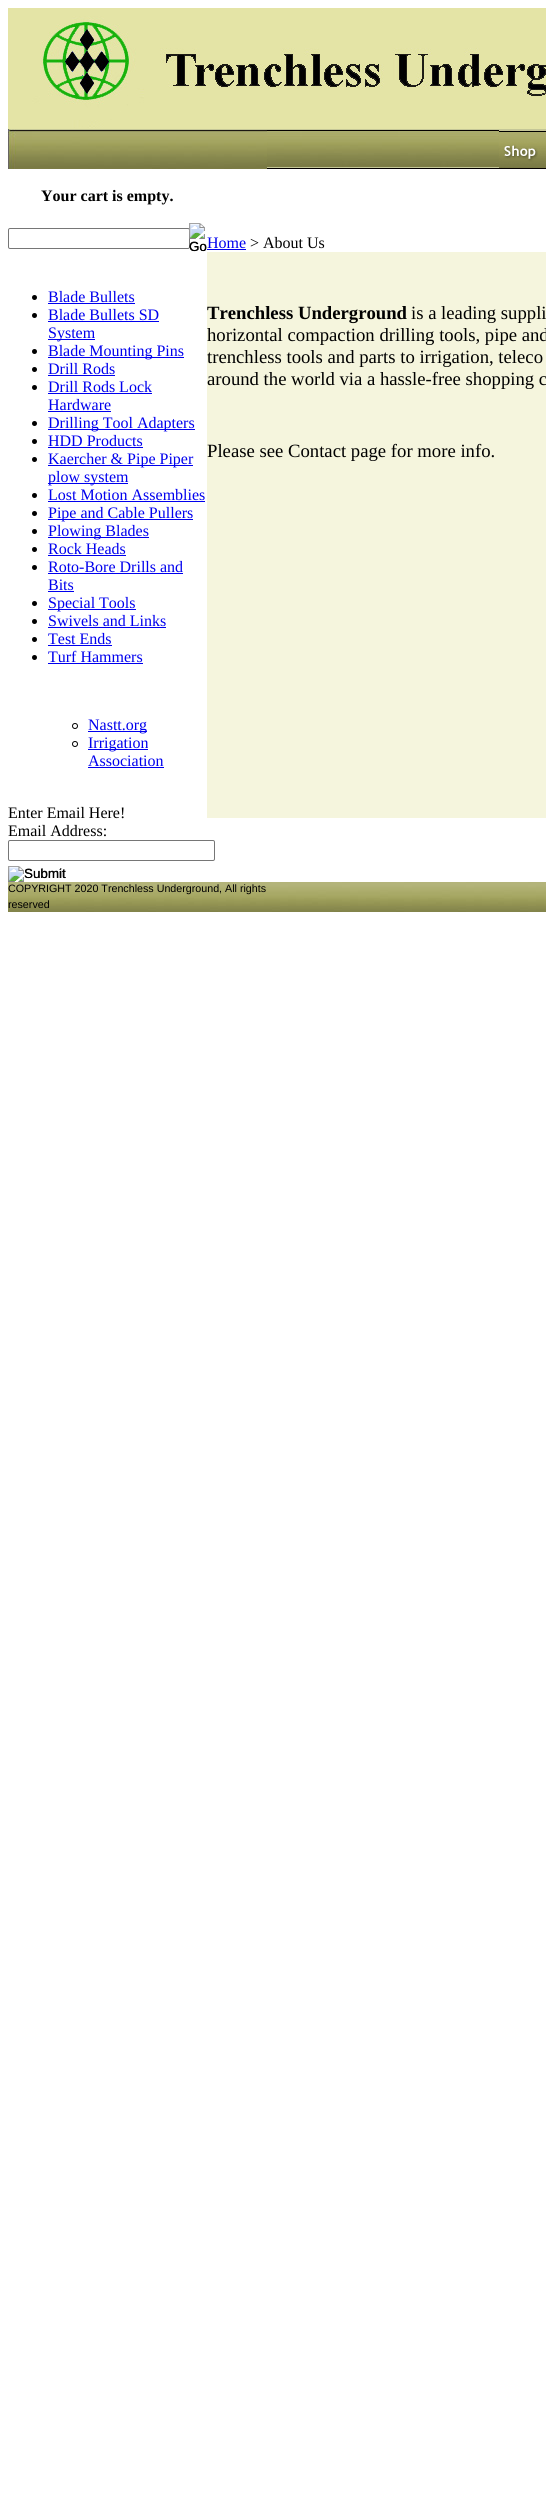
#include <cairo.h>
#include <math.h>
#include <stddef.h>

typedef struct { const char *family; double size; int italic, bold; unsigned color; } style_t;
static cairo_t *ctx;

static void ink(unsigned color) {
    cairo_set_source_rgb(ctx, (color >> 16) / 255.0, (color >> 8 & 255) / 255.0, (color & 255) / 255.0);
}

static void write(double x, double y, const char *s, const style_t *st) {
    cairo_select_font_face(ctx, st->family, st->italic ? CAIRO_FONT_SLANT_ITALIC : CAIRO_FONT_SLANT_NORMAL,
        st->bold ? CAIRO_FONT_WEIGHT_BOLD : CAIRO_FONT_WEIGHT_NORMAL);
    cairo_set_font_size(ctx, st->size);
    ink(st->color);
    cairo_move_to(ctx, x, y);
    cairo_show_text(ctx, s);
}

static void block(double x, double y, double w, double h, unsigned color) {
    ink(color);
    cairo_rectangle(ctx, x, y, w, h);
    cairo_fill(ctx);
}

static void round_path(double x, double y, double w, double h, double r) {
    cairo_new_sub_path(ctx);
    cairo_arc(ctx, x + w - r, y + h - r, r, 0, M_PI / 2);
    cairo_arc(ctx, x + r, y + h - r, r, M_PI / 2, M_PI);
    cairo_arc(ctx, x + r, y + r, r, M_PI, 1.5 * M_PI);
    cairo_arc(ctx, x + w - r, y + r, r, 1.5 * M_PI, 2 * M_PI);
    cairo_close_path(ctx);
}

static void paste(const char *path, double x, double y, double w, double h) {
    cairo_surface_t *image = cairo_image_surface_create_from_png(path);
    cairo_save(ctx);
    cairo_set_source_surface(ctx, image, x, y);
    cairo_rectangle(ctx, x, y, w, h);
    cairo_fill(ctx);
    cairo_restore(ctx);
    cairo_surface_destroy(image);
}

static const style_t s1 = {"Liberation Serif", 16, 0, 1, 0x000000};
static const style_t s2 = {"Liberation Sans", 13.5, 0, 0, 0x000000};
static const style_t s3 = {"Liberation Serif", 16, 0, 0, 0x0000ee};
static const style_t s4 = {"Liberation Serif", 16, 0, 0, 0x000000};
static const style_t s5 = {"Liberation Serif", 18.7, 0, 1, 0x000000};
static const style_t s6 = {"Liberation Serif", 18.7, 0, 0, 0x000000};
static const style_t s7 = {"Liberation Sans", 10.7, 0, 0, 0x000000};

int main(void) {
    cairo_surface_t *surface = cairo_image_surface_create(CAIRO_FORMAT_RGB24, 546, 2519);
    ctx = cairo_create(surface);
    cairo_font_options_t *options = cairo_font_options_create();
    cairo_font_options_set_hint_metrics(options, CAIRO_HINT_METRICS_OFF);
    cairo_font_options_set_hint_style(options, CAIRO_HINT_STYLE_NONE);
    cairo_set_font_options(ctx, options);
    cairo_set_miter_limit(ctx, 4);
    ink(0xffffff);
    cairo_paint(ctx);
    paste("pic1.png", 8, 8, 538, 121);
    paste("pic2.png", 267, 129, 279, 40);
    paste("pic3.png", 8, 129, 259, 40);
    paste("pic4.png", 499, 130, 47, 38);
    write(41, 201, "Your cart is empty.", &s1);
    round_path(8.5, 228.5, 181, 20, 1.5);
    ink(0x767676);
    cairo_set_line_width(ctx, 1);
    cairo_stroke(ctx);
    paste("pic5.png", 189, 223, 18, 28);
    write(189, 251, "Go", &s2);
    cairo_new_path(ctx);
    cairo_arc(ctx, 34.5, 297.5, 2.5, 0, 2 * M_PI);
    cairo_fill(ctx);
    write(48, 302, "Blade Bullets", &s3);
    block(48, 303, 87, 1, 0x0000ee);
    ink(0x000000);
    cairo_new_path(ctx);
    cairo_arc(ctx, 34.5, 315.5, 2.5, 0, 2 * M_PI);
    cairo_fill(ctx);
    write(48, 320, "Blade Bullets SD", &s3);
    block(48, 321, 111, 1, 0x0000ee);
    block(48, 339, 47, 1, 0x0000ee);
    write(48, 338, "System", &s3);
    ink(0x000000);
    cairo_new_path(ctx);
    cairo_arc(ctx, 34.5, 351.5, 2.5, 0, 2 * M_PI);
    cairo_fill(ctx);
    block(48, 357, 136, 1, 0x0000ee);
    write(48, 356, "Blade Mounting Pins", &s3);
    ink(0x000000);
    cairo_new_path(ctx);
    cairo_arc(ctx, 34.5, 369.5, 2.5, 0, 2 * M_PI);
    cairo_fill(ctx);
    write(48, 374, "Drill Rods", &s3);
    block(48, 375, 67, 1, 0x0000ee);
    ink(0x000000);
    cairo_new_path(ctx);
    cairo_arc(ctx, 34.5, 387.5, 2.5, 0, 2 * M_PI);
    cairo_fill(ctx);
    write(48, 392, "Drill Rods Lock", &s3);
    block(48, 393, 104, 1, 0x0000ee);
    write(48, 410, "Hardware", &s3);
    block(48, 411, 63, 1, 0x0000ee);
    ink(0x000000);
    cairo_new_path(ctx);
    cairo_arc(ctx, 34.5, 423.5, 2.5, 0, 2 * M_PI);
    cairo_fill(ctx);
    block(48, 429, 147, 1, 0x0000ee);
    write(48, 428, "Drilling Tool Adapters", &s3);
    ink(0x000000);
    cairo_new_path(ctx);
    cairo_arc(ctx, 34.5, 441.5, 2.5, 0, 2 * M_PI);
    cairo_fill(ctx);
    write(48, 446, "HDD Products", &s3);
    block(48, 447, 95, 1, 0x0000ee);
    ink(0x000000);
    cairo_new_path(ctx);
    cairo_arc(ctx, 34.5, 459.5, 2.5, 0, 2 * M_PI);
    cairo_fill(ctx);
    block(48, 465, 145, 1, 0x0000ee);
    write(48, 464, "Kaercher & Pipe Piper", &s3);
    block(48, 483, 80, 1, 0x0000ee);
    write(48, 482, "plow system", &s3);
    ink(0x000000);
    cairo_new_path(ctx);
    cairo_arc(ctx, 34.5, 495.5, 2.5, 0, 2 * M_PI);
    cairo_fill(ctx);
    write(48, 500, "Lost Motion Assemblies", &s3);
    block(48, 501, 157, 1, 0x0000ee);
    ink(0x000000);
    cairo_new_path(ctx);
    cairo_arc(ctx, 34.5, 513.5, 2.5, 0, 2 * M_PI);
    cairo_fill(ctx);
    block(48, 519, 145, 1, 0x0000ee);
    write(48, 518, "Pipe and Cable Pullers", &s3);
    ink(0x000000);
    cairo_new_path(ctx);
    cairo_arc(ctx, 34.5, 531.5, 2.5, 0, 2 * M_PI);
    cairo_fill(ctx);
    block(48, 537, 101, 1, 0x0000ee);
    write(48, 536, "Plowing Blades", &s3);
    ink(0x000000);
    cairo_new_path(ctx);
    cairo_arc(ctx, 34.5, 549.5, 2.5, 0, 2 * M_PI);
    cairo_fill(ctx);
    write(48, 554, "Rock Heads", &s3);
    block(48, 555, 78, 1, 0x0000ee);
    ink(0x000000);
    cairo_new_path(ctx);
    cairo_arc(ctx, 34.5, 567.5, 2.5, 0, 2 * M_PI);
    cairo_fill(ctx);
    write(48, 572, "Roto-Bore Drills and", &s3);
    block(48, 573, 135, 1, 0x0000ee);
    write(48, 590, "Bits", &s3);
    block(48, 591, 26, 1, 0x0000ee);
    ink(0x000000);
    cairo_new_path(ctx);
    cairo_arc(ctx, 34.5, 603.5, 2.5, 0, 2 * M_PI);
    cairo_fill(ctx);
    block(48, 609, 88, 1, 0x0000ee);
    write(48, 608, "Special Tools", &s3);
    ink(0x000000);
    cairo_new_path(ctx);
    cairo_arc(ctx, 34.5, 621.5, 2.5, 0, 2 * M_PI);
    cairo_fill(ctx);
    write(48, 626, "Swivels and Links", &s3);
    block(48, 627, 118, 1, 0x0000ee);
    ink(0x000000);
    cairo_new_path(ctx);
    cairo_arc(ctx, 34.5, 639.5, 2.5, 0, 2 * M_PI);
    cairo_fill(ctx);
    write(48, 644, "Test Ends", &s3);
    block(48, 645, 64, 1, 0x0000ee);
    ink(0x000000);
    cairo_new_path(ctx);
    cairo_arc(ctx, 34.5, 657.5, 2.5, 0, 2 * M_PI);
    cairo_fill(ctx);
    write(48, 662, "Turf Hammers", &s3);
    block(48, 663, 95, 1, 0x0000ee);
    cairo_new_path(ctx);
    cairo_arc(ctx, 75, 726, 2.5, 0, 2 * M_PI);
    ink(0x000000);
    cairo_stroke(ctx);
    block(88, 731, 59, 1, 0x0000ee);
    write(88, 730, "Nastt.org", &s3);
    cairo_new_path(ctx);
    cairo_arc(ctx, 75, 744, 2.5, 0, 2 * M_PI);
    ink(0x000000);
    cairo_stroke(ctx);
    block(88, 749, 60, 1, 0x0000ee);
    write(88, 748, "Irrigation", &s3);
    write(88, 766, "Association", &s3);
    block(88, 767, 76, 1, 0x0000ee);
    write(8, 818, "Enter Email Here!", &s4);
    write(8, 836, "Email Address:", &s4);
    round_path(8.5, 840.5, 206, 20, 1.5);
    ink(0x767676);
    cairo_stroke(ctx);
    paste("pic6.png", 8, 866, 57, 16);
    write(24, 878, "Submit", &s2);
    write(207, 248, "Home", &s3);
    block(207, 249, 39, 1, 0x0000ee);
    write(250, 248, "> About Us", &s4);
    block(207, 252, 339, 566, 0xf5f5dd);
    write(207, 319, "Trenchless Underground", &s5);
    write(411, 319, "is a leading suppli", &s6);
    write(207, 341, "horizontal compaction drilling tools, pipe and", &s6);
    write(207, 363, "trenchless tools and parts to irrigation, teleco", &s6);
    write(207, 385, "around the world via a hassle-free shopping c", &s6);
    write(207, 457, "Please see Contact page for more info.", &s6);
    paste("pic7.png", 8, 882, 538, 30);
    write(8, 892, "COPYRIGHT 2020 Trenchless Underground, All rights", &s7);
    write(8, 908, "reserved", &s7);
    cairo_surface_write_to_png(surface, "screenshot.png");
    cairo_font_options_destroy(options);
    cairo_destroy(ctx);
    cairo_surface_destroy(surface);
    return 0;
}
